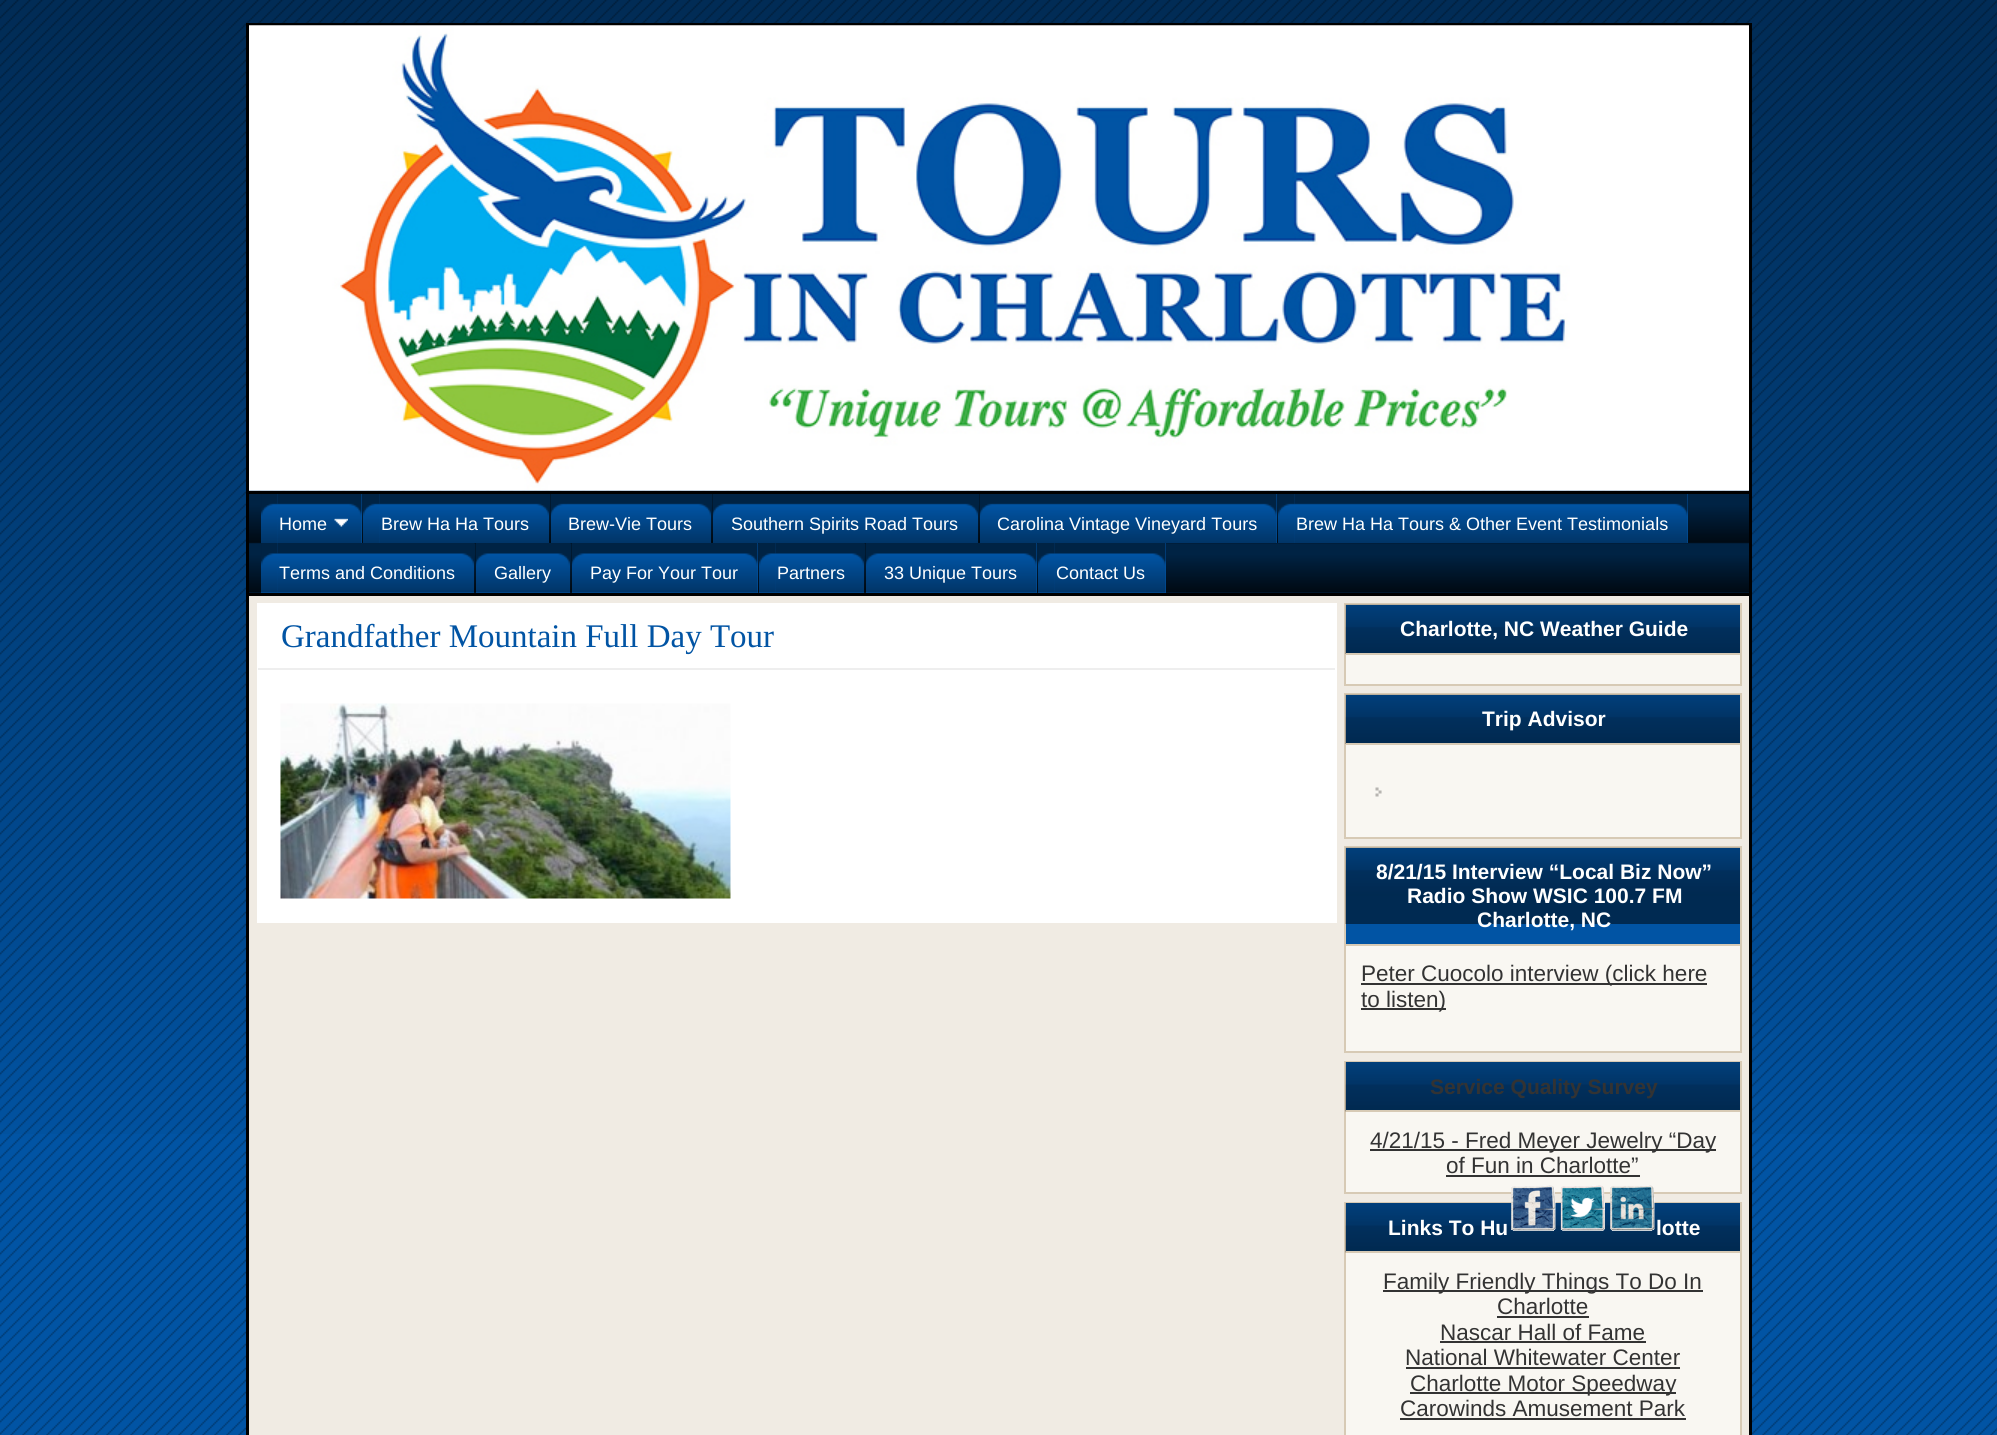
#include <cairo.h>
#include <math.h>
#include <stddef.h>

typedef struct { const char *family; double size; int italic, bold; unsigned color; } style_t;
static cairo_t *ctx;

static void ink(unsigned color) {
    cairo_set_source_rgb(ctx, (color >> 16) / 255.0, (color >> 8 & 255) / 255.0, (color & 255) / 255.0);
}

static void write(double x, double y, const char *s, const style_t *st) {
    cairo_select_font_face(ctx, st->family, st->italic ? CAIRO_FONT_SLANT_ITALIC : CAIRO_FONT_SLANT_NORMAL,
        st->bold ? CAIRO_FONT_WEIGHT_BOLD : CAIRO_FONT_WEIGHT_NORMAL);
    cairo_set_font_size(ctx, st->size);
    ink(st->color);
    cairo_move_to(ctx, x, y);
    cairo_show_text(ctx, s);
}

static void block(double x, double y, double w, double h, unsigned color) {
    ink(color);
    cairo_rectangle(ctx, x, y, w, h);
    cairo_fill(ctx);
}

static void paste(const char *path, double x, double y, double w, double h) {
    cairo_surface_t *image = cairo_image_surface_create_from_png(path);
    cairo_save(ctx);
    cairo_set_source_surface(ctx, image, x, y);
    cairo_rectangle(ctx, x, y, w, h);
    cairo_fill(ctx);
    cairo_restore(ctx);
    cairo_surface_destroy(image);
}

static const style_t s1 = {"Liberation Sans", 18, 0, 0, 0xffffff};
static const style_t s2 = {"Liberation Serif", 33, 0, 0, 0x0154a4};
static const style_t s3 = {"Liberation Sans", 21, 0, 1, 0xffffff};
static const style_t s4 = {"Liberation Sans", 22.5, 0, 0, 0x333333};
static const style_t s5 = {"Liberation Sans", 21, 0, 1, 0x333333};

int main(void) {
    cairo_surface_t *surface = cairo_image_surface_create(CAIRO_FORMAT_RGB24, 1997, 1435);
    ctx = cairo_create(surface);
    cairo_font_options_t *options = cairo_font_options_create();
    cairo_font_options_set_hint_metrics(options, CAIRO_HINT_METRICS_OFF);
    cairo_font_options_set_hint_style(options, CAIRO_HINT_STYLE_NONE);
    cairo_set_font_options(ctx, options);
    cairo_set_miter_limit(ctx, 4);
    ink(0x0154a4);
    cairo_paint(ctx);
    paste("pic1.png", 0, 0, 1997, 1435);
    paste("pic2.png", 0, 0, 1997, 1134);
    cairo_rectangle(ctx, 247.5, 24.5, 1503, 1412);
    ink(0x000000);
    cairo_set_line_width(ctx, 3);
    cairo_stroke(ctx);
    paste("pic3.png", 249, 25, 1500, 466);
    block(249, 491, 1500, 3, 0x000000);
    paste("pic4.png", 249, 25, 1500, 466);
    block(249, 494, 1500, 99, 0x0154a4);
    paste("pic5.png", 249, 494, 1500, 99);
    block(249, 593, 1500, 3, 0x000000);
    block(261, 494, 101, 49, 0x0154a4);
    paste("pic6.png", 261, 494, 17, 49);
    paste("pic7.png", 277, 494, 85, 49);
    write(279, 530, "Home", &s1);
    paste("pic8.png", 334, 518, 14, 9);
    block(363, 494, 186, 49, 0x0154a4);
    paste("pic6.png", 363, 494, 17, 49);
    paste("pic9.png", 379, 494, 170, 49);
    write(381, 530, "Brew Ha Ha Tours", &s1);
    block(551, 494, 160, 49, 0x0154a4);
    paste("pic10.png", 550, 494, 17, 49);
    paste("pic11.png", 567, 494, 144, 49);
    write(568, 530, "Brew-Vie Tours", &s1);
    block(713, 494, 265, 49, 0x0154a4);
    paste("pic10.png", 712, 494, 17, 49);
    paste("pic12.png", 729, 494, 249, 49);
    write(731, 530, "Southern Spirits Road Tours", &s1);
    block(980, 494, 297, 49, 0x0154a4);
    paste("pic13.png", 979, 494, 17, 49);
    paste("pic14.png", 996, 494, 281, 49);
    write(997, 530, "Carolina Vintage Vineyard Tours", &s1);
    block(1278, 494, 410, 49, 0x0154a4);
    paste("pic15.png", 1278, 494, 17, 49);
    paste("pic16.png", 1294, 494, 394, 49);
    write(1296, 530, "Brew Ha Ha Tours & Other Event Testimonials", &s1);
    block(261, 543, 213, 50, 0x0154a4);
    paste("pic17.png", 261, 543, 17, 50);
    paste("pic18.png", 277, 543, 197, 50);
    write(279, 579, "Terms and Conditions", &s1);
    block(476, 543, 94, 50, 0x0154a4);
    paste("pic19.png", 475, 543, 17, 50);
    paste("pic20.png", 492, 543, 78, 50);
    write(494, 579, "Gallery", &s1);
    block(572, 543, 186, 50, 0x0154a4);
    paste("pic21.png", 571, 543, 17, 50);
    paste("pic22.png", 588, 543, 170, 50);
    write(590, 579, "Pay For Your Tour", &s1);
    block(759, 543, 105, 50, 0x0154a4);
    paste("pic23.png", 759, 543, 17, 50);
    paste("pic24.png", 775, 543, 89, 50);
    write(777, 579, "Partners", &s1);
    block(866, 543, 171, 50, 0x0154a4);
    paste("pic19.png", 865, 543, 17, 50);
    paste("pic25.png", 882, 543, 155, 50);
    write(884, 579, "33 Unique Tours", &s1);
    block(1038, 543, 128, 50, 0x0154a4);
    paste("pic17.png", 1038, 543, 17, 50);
    paste("pic26.png", 1054, 543, 112, 50);
    write(1056, 579, "Contact Us", &s1);
    block(249, 596, 1500, 839, 0xf0ebe3);
    block(257, 603, 1080, 320, 0xffffff);
    block(258, 668, 1077, 2, 0xeeeeee);
    write(281, 647, "Grandfather Mountain Full Day Tour", &s2);
    paste("pic27.png", 280, 703, 451, 196);
    block(1346, 655, 394, 29, 0xf9f7f2);
    cairo_rectangle(ctx, 1345, 604, 396, 81);
    ink(0xd7cab5);
    cairo_set_line_width(ctx, 2);
    cairo_stroke(ctx);
    block(1346, 605, 394, 48, 0x0154a4);
    paste("pic28.png", 1345, 604, 395, 50);
    block(1346, 653, 394, 2, 0xd7cab5);
    write(1400, 636, "Charlotte, NC Weather Guide", &s3);
    block(1346, 745, 394, 92, 0xf9f7f2);
    cairo_rectangle(ctx, 1345, 694, 396, 144);
    ink(0xd7cab5);
    cairo_stroke(ctx);
    block(1346, 695, 394, 48, 0x0154a4);
    paste("pic28.png", 1345, 694, 395, 50);
    block(1346, 743, 394, 2, 0xd7cab5);
    write(1482, 726, "Trip Advisor", &s3);
    paste("pic29.png", 1375, 787, 7, 10);
    block(1346, 946, 394, 105, 0xf9f7f2);
    cairo_rectangle(ctx, 1345, 847, 396, 205);
    ink(0xd7cab5);
    cairo_stroke(ctx);
    block(1346, 848, 394, 96, 0x0154a4);
    paste("pic30.png", 1345, 847, 395, 77);
    block(1346, 944, 394, 2, 0xd7cab5);
    write(1376, 879, "8/21/15 Interview “Local Biz Now”", &s3);
    write(1407, 903, "Radio Show WSIC 100.7 FM", &s3);
    write(1477, 927, "Charlotte, NC", &s3);
    block(1361, 983, 346, 2, 0x333333);
    write(1361, 981, "Peter Cuocolo interview (click here", &s4);
    block(1361, 1008, 85, 2, 0x333333);
    write(1361, 1007, "to listen)", &s4);
    block(1346, 1112, 394, 80, 0xf9f7f2);
    cairo_rectangle(ctx, 1345, 1062, 396, 131);
    ink(0xd7cab5);
    cairo_stroke(ctx);
    block(1346, 1062, 394, 48, 0x0154a4);
    paste("pic31.png", 1345, 1062, 395, 50);
    block(1346, 1110, 394, 2, 0xd7cab5);
    write(1430, 1094, "Service Quality Survey", &s5);
    block(1370, 1149, 346, 2, 0x333333);
    write(1370, 1148, "4/21/15 - Fred Meyer Jewelry “Day", &s4);
    write(1446, 1173, "of Fun in Charlotte”", &s4);
    block(1446, 1175, 194, 2, 0x333333);
    block(1346, 1253, 394, 182, 0xf9f7f2);
    cairo_rectangle(ctx, 1345, 1203, 396, 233);
    ink(0xd7cab5);
    cairo_stroke(ctx);
    block(1346, 1203, 394, 48, 0x0154a4);
    paste("pic31.png", 1345, 1203, 395, 50);
    block(1346, 1251, 394, 2, 0xd7cab5);
    write(1388, 1235, "Links To Hu", &s3);
    write(1656, 1235, "lotte", &s3);
    block(1383, 1290, 320, 2, 0x333333);
    write(1383, 1289, "Family Friendly Things To Do In", &s4);
    write(1497, 1314, "Charlotte", &s4);
    block(1497, 1316, 92, 2, 0x333333);
    write(1440, 1340, "Nascar Hall of Fame", &s4);
    block(1440, 1341, 206, 2, 0x333333);
    write(1405, 1365, "National Whitewater Center", &s4);
    block(1406, 1367, 274, 2, 0x333333);
    block(1410, 1392, 266, 2, 0x333333);
    write(1410, 1391, "Charlotte Motor Speedway", &s4);
    write(1400, 1416, "Carowinds Amusement Park", &s4);
    block(1400, 1418, 286, 2, 0x333333);
    paste("pic32.png", 1511, 1185, 45, 46);
    paste("pic33.png", 1560, 1185, 45, 46);
    paste("pic34.png", 1610, 1185, 45, 46);
    cairo_surface_write_to_png(surface, "screenshot.png");
    cairo_font_options_destroy(options);
    cairo_destroy(ctx);
    cairo_surface_destroy(surface);
    return 0;
}
